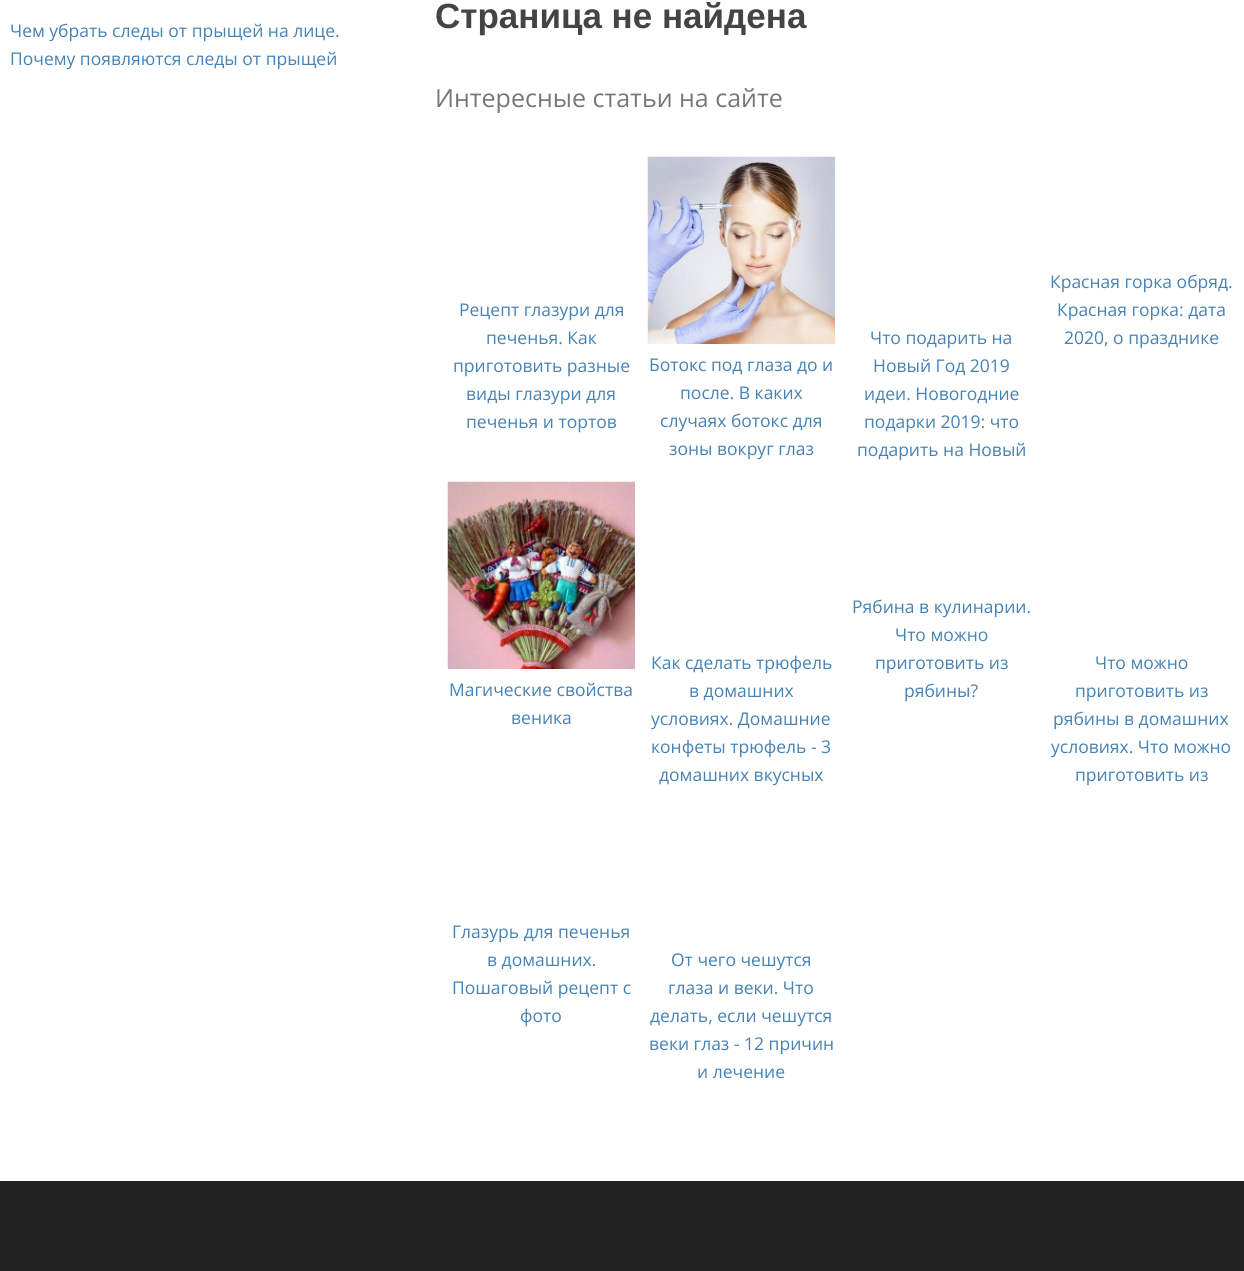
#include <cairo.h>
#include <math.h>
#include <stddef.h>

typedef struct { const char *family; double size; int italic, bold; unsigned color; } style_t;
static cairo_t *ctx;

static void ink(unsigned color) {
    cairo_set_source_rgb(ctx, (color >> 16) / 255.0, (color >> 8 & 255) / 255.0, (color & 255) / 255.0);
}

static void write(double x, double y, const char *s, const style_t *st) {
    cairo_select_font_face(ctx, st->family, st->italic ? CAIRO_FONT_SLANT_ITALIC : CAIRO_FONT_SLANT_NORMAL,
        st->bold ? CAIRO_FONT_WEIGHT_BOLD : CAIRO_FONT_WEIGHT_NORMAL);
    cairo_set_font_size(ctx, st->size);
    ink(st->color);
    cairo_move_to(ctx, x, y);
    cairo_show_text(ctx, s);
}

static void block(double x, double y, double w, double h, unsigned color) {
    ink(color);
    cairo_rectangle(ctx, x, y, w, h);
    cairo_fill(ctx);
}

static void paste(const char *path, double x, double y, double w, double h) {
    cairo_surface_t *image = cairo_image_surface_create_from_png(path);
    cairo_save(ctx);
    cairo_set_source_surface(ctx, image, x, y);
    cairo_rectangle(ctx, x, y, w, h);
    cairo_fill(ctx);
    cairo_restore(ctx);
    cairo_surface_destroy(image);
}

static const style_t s1 = {"Open Sans", 17.5, 0, 0, 0x4682b4};
static const style_t s2 = {"Liberation Sans", 35, 0, 1, 0x444444};
static const style_t s3 = {"Open Sans", 25, 0, 0, 0x777777};

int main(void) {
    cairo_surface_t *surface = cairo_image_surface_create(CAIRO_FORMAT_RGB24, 1244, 1271);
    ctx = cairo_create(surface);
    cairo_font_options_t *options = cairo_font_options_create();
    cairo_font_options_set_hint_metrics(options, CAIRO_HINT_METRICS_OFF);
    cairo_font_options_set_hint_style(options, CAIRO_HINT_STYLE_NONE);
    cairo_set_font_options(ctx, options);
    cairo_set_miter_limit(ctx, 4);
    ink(0xffffff);
    cairo_paint(ctx);
    write(10, 37, "Чем убрать следы от прыщей на лице.", &s1);
    write(10, 65, "Почему появляются следы от прыщей", &s1);
    write(435, 28, "Страница не найдена", &s2);
    write(435, 107, "Интересные статьи на сайте", &s3);
    write(459, 316, "Рецепт глазури для", &s1);
    write(486, 344, "печенья. Как", &s1);
    write(453, 372, "приготовить разные", &s1);
    write(466, 400, "виды глазури для", &s1);
    write(466, 428, "печенья и тортов", &s1);
    paste("pic1.png", 647, 156, 188, 188);
    write(649, 371, "Ботокс под глаза до и", &s1);
    write(680, 399, "после. В каких", &s1);
    write(660, 427, "случаях ботокс для", &s1);
    write(669, 455, "зоны вокруг глаз", &s1);
    write(870, 344, "Что подарить на", &s1);
    write(873, 372, "Новый Год 2019", &s1);
    write(864, 400, "идеи. Новогодние", &s1);
    write(864, 428, "подарки 2019: что", &s1);
    write(857, 456, "подарить на Новый", &s1);
    write(1050, 288, "Красная горка обряд.", &s1);
    write(1057, 316, "Красная горка: дата", &s1);
    write(1064, 344, "2020, о празднике", &s1);
    paste("pic2.png", 447, 481, 188, 188);
    write(449, 696, "Магические свойства", &s1);
    write(511, 724, "веника", &s1);
    write(651, 669, "Как сделать трюфель", &s1);
    write(689, 697, "в домашних", &s1);
    write(651, 725, "условиях. Домашние", &s1);
    write(651, 753, "конфеты трюфель - 3", &s1);
    write(659, 781, "домашних вкусных", &s1);
    write(852, 613, "Рябина в кулинарии.", &s1);
    write(895, 641, "Что можно", &s1);
    write(875, 669, "приготовить из", &s1);
    write(904, 697, "рябины?", &s1);
    write(1095, 669, "Что можно", &s1);
    write(1075, 697, "приготовить из", &s1);
    write(1053, 725, "рябины в домашних", &s1);
    write(1051, 753, "условиях. Что можно", &s1);
    write(1075, 781, "приготовить из", &s1);
    write(452, 938, "Глазурь для печенья", &s1);
    write(487, 966, "в домашних.", &s1);
    write(452, 994, "Пошаговый рецепт с", &s1);
    write(520, 1022, "фото", &s1);
    write(671, 966, "От чего чешутся", &s1);
    write(668, 994, "глаза и веки. Что", &s1);
    write(650, 1022, "делать, если чешутся", &s1);
    write(649, 1050, "веки глаз - 12 причин", &s1);
    write(697, 1078, "и лечение", &s1);
    block(0, 1181, 1244, 90, 0x222222);
    cairo_surface_write_to_png(surface, "screenshot.png");
    cairo_font_options_destroy(options);
    cairo_destroy(ctx);
    cairo_surface_destroy(surface);
    return 0;
}
